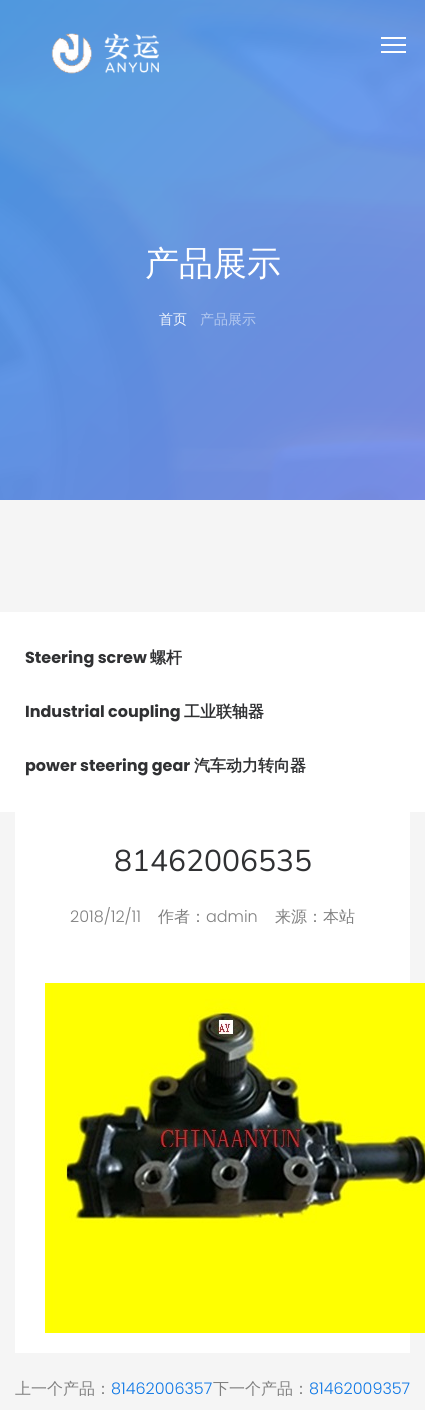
#include <cairo.h>
#include <math.h>
#include <stddef.h>

typedef struct { const char *family; double size; int italic, bold; unsigned color; } style_t;
static cairo_t *ctx;

static void ink(unsigned color) {
    cairo_set_source_rgb(ctx, (color >> 16) / 255.0, (color >> 8 & 255) / 255.0, (color & 255) / 255.0);
}

static void write(double x, double y, const char *s, const style_t *st) {
    cairo_select_font_face(ctx, st->family, st->italic ? CAIRO_FONT_SLANT_ITALIC : CAIRO_FONT_SLANT_NORMAL,
        st->bold ? CAIRO_FONT_WEIGHT_BOLD : CAIRO_FONT_WEIGHT_NORMAL);
    cairo_set_font_size(ctx, st->size);
    ink(st->color);
    cairo_move_to(ctx, x, y);
    cairo_show_text(ctx, s);
}

static void block(double x, double y, double w, double h, unsigned color) {
    ink(color);
    cairo_rectangle(ctx, x, y, w, h);
    cairo_fill(ctx);
}

static void paste(const char *path, double x, double y, double w, double h) {
    cairo_surface_t *image = cairo_image_surface_create_from_png(path);
    cairo_save(ctx);
    cairo_set_source_surface(ctx, image, x, y);
    cairo_rectangle(ctx, x, y, w, h);
    cairo_fill(ctx);
    cairo_restore(ctx);
    cairo_surface_destroy(image);
}

static const style_t s1 = {"WenQuanYi Zen Hei Medium", 34, 0, 0, 0xffffff};
static const style_t s2 = {"WenQuanYi Zen Hei Medium", 14, 0, 0, 0xeff4fc};
static const style_t s3 = {"WenQuanYi Zen Hei Medium", 14, 0, 0, 0xb3c8ef};
static const style_t s4 = {"Poppins", 16, 0, 1, 0x303133};
static const style_t s5 = {"WenQuanYi Zen Hei", 16, 0, 1, 0x303133};
static const style_t s6 = {"Nunito", 30, 0, 0, 0x303133};
static const style_t s7 = {"Poppins Light", 16, 0, 0, 0x808080};
static const style_t s8 = {"WenQuanYi Zen Hei Medium", 16, 0, 0, 0x808080};
static const style_t s9 = {"Poppins Light", 16, 0, 0, 0x0d77e5};

int main(void) {
    cairo_surface_t *surface = cairo_image_surface_create(CAIRO_FORMAT_RGB24, 425, 1410);
    ctx = cairo_create(surface);
    cairo_font_options_t *options = cairo_font_options_create();
    cairo_font_options_set_hint_metrics(options, CAIRO_HINT_METRICS_OFF);
    cairo_font_options_set_hint_style(options, CAIRO_HINT_STYLE_NONE);
    cairo_set_font_options(ctx, options);
    cairo_set_miter_limit(ctx, 4);
    ink(0xf5f5f5);
    cairo_paint(ctx);
    paste("pic2.png", 0, 0, 425, 500);
    paste("pic1.png", 51, 33, 108, 41);
    block(381, 44, 25, 2, 0xffffff);
    block(381, 37, 25, 2, 0xffffff);
    block(381, 51, 25, 2, 0xffffff);
    write(145, 275, "产品展示", &s1);
    write(159, 324, "首页", &s2);
    write(200, 324, "产品展示", &s3);
    block(0, 612, 425, 200, 0xffffff);
    write(25, 663, "Steering screw", &s4);
    write(150, 663, "螺杆", &s5);
    write(25, 717, "Industrial coupling", &s4);
    write(184, 717, "工业联轴器", &s5);
    write(25, 771, "power steering gear", &s4);
    write(194, 771, "汽车动力转向器", &s5);
    block(15, 812, 395, 541, 0xffffff);
    write(114, 871, "81462006535", &s6);
    write(70, 922, "2018/12/11", &s7);
    write(158, 922, "作者：", &s8);
    write(206, 922, "admin", &s7);
    write(275, 922, "来源：本站", &s8);
    paste("pic3.png", 45, 983, 380, 350);
    write(15, 1394, "上一个产品：", &s8);
    write(111, 1394, "81462006357", &s9);
    write(213, 1394, "下一个产品：", &s8);
    write(309, 1394, "81462009357", &s9);
    cairo_surface_write_to_png(surface, "screenshot.png");
    cairo_font_options_destroy(options);
    cairo_destroy(ctx);
    cairo_surface_destroy(surface);
    return 0;
}
